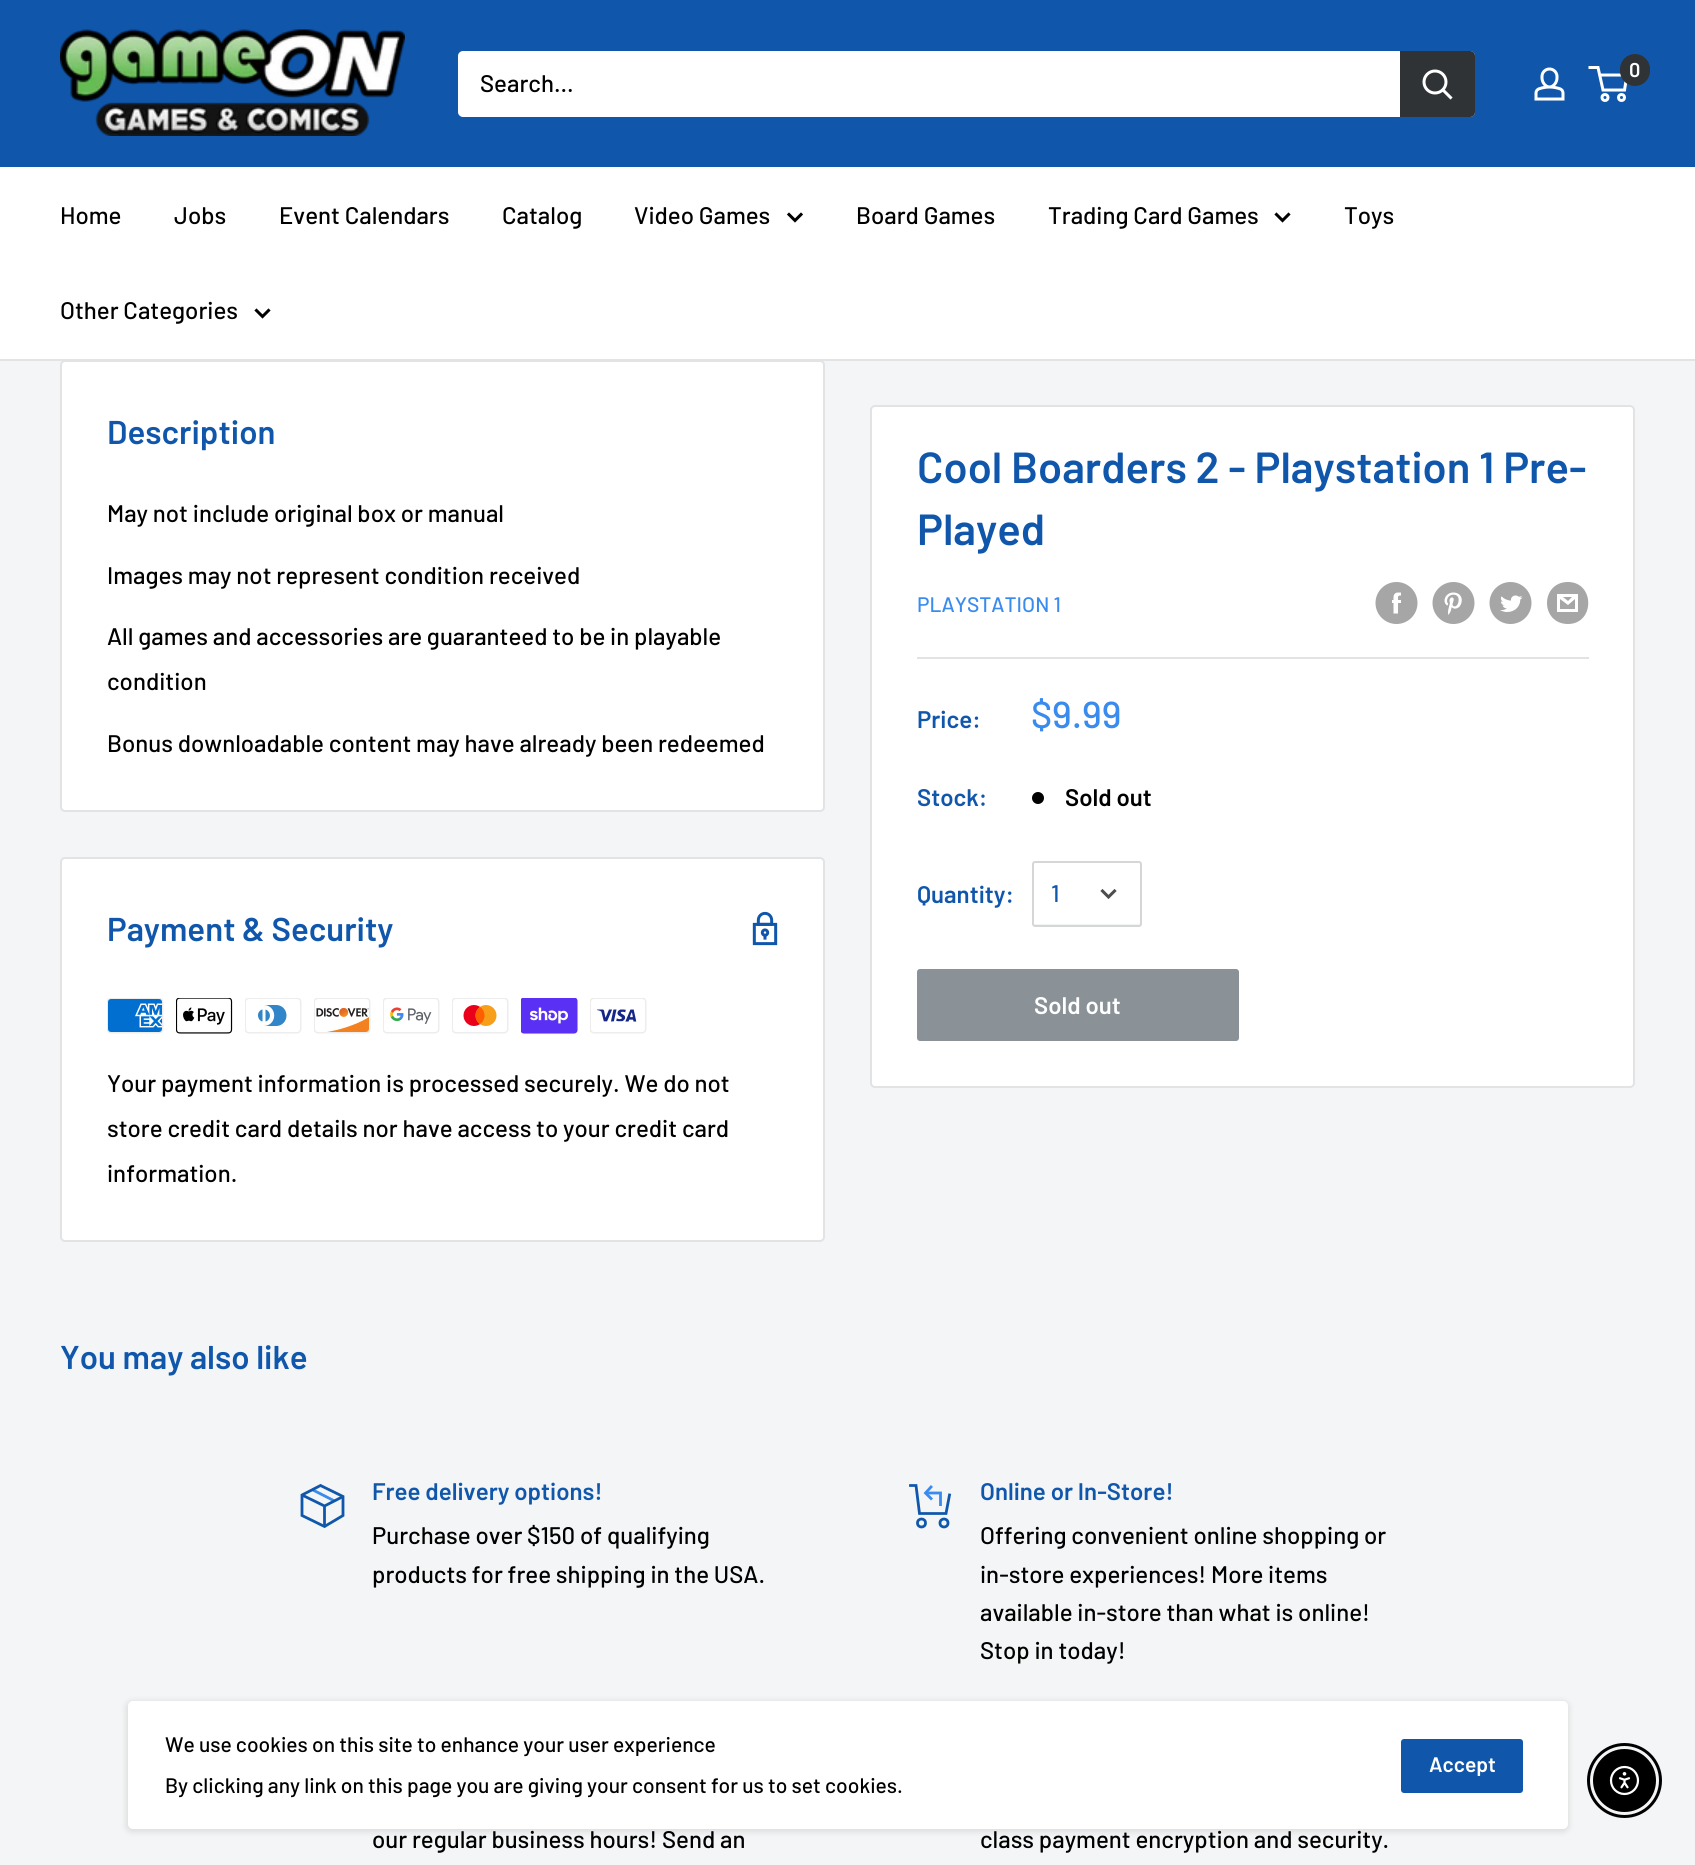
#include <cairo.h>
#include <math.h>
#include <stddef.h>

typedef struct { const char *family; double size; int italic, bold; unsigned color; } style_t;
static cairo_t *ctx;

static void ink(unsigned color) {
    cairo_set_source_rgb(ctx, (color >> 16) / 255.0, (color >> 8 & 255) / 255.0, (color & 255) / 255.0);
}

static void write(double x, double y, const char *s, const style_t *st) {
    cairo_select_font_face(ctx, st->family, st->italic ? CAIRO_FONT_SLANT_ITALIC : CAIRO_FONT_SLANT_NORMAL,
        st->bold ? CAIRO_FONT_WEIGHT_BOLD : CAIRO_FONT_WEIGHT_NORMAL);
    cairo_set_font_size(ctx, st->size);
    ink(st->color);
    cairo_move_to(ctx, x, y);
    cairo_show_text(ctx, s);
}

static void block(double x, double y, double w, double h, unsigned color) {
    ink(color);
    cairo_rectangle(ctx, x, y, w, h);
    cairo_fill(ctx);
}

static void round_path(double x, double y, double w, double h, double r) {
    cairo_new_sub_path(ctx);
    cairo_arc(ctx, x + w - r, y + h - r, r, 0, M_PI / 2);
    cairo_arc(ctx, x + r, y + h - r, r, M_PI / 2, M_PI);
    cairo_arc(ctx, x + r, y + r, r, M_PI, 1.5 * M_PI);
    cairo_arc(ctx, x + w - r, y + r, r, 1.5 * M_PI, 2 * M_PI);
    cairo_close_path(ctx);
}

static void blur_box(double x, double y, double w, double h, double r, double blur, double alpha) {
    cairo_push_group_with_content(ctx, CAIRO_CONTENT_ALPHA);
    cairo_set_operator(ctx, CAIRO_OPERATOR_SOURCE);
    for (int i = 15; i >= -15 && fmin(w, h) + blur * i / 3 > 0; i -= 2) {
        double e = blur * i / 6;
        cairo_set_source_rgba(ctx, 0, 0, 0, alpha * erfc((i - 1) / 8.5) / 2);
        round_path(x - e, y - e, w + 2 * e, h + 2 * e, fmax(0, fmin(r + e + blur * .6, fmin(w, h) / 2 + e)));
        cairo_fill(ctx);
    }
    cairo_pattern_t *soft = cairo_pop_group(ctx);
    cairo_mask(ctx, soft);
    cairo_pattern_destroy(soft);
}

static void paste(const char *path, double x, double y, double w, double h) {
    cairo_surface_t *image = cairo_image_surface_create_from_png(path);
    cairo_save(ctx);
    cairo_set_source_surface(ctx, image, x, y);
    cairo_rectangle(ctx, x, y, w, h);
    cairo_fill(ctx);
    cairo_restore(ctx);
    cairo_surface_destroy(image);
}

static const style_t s1 = {"Barlow SemiBold", 20, 0, 0, 0xffffff};
static const style_t s2 = {"Barlow Medium", 24, 0, 0, 0x000000};
static const style_t s3 = {"Barlow SemiBold", 33, 0, 0, 0x1057ac};
static const style_t s4 = {"Barlow SemiBold", 43.5, 0, 0, 0x1057ac};
static const style_t s5 = {"Barlow Medium", 21, 0, 0, 0x398bed};
static const style_t s6 = {"Barlow SemiBold", 24, 0, 0, 0x1057ac};
static const style_t s7 = {"Barlow Medium", 37.5, 0, 0, 0x398bed};
static const style_t s8 = {"Barlow SemiBold", 24, 0, 0, 0x000000};
static const style_t s9 = {"Barlow Medium", 24, 0, 0, 0x1057ac};
static const style_t s10 = {"Barlow SemiBold", 24, 0, 0, 0xffffff};
static const style_t s11 = {"Barlow Medium", 21, 0, 0, 0x000000};
static const style_t s12 = {"Barlow SemiBold", 21, 0, 0, 0xffffff};

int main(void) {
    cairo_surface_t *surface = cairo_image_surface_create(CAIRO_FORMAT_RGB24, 1695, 1865);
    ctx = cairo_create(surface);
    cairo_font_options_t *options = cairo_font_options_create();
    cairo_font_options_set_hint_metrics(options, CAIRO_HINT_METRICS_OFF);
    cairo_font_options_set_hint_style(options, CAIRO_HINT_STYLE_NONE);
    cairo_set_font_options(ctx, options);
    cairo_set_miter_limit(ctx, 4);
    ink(0xf3f5f6);
    cairo_paint(ctx);
    block(0, 0, 1695, 167, 0x1057ac);
    paste("pic1.png", 60, 29, 345, 107);
    paste("pic2.png", 1534, 67, 31, 34);
    cairo_arc(ctx, 1605, 97.5, 3, 0, 2 * M_PI);
    ink(0xffffff);
    cairo_set_line_width(ctx, 3);
    cairo_stroke(ctx);
    cairo_arc(ctx, 1621.5, 97.5, 3, 0, 2 * M_PI);
    cairo_stroke(ctx);
    cairo_new_path(ctx);
    cairo_move_to(ctx, 1599.5, 75);
    cairo_line_to(ctx, 1627, 75);
    cairo_line_to(ctx, 1624.5, 90);
    cairo_line_to(ctx, 1603, 90);
    cairo_line_to(ctx, 1598, 67.5);
    cairo_line_to(ctx, 1588.5, 67.5);
    cairo_stroke(ctx);
    ink(0x303335);
    round_path(1620, 54, 30, 32, 15);
    cairo_fill(ctx);
    write(1629, 77, "0", &s1);
    round_path(458, 51, 1017, 66, 5);
    cairo_fill(ctx);
    write(480, 92, "Search...", &s2);
    ink(0x303335);
    cairo_new_path(ctx);
    cairo_move_to(ctx, 1400, 51);
    cairo_line_to(ctx, 1470, 51);
    cairo_curve_to(ctx, 1473, 51, 1475, 53, 1475, 56);
    cairo_line_to(ctx, 1475, 112);
    cairo_curve_to(ctx, 1475, 115, 1473, 117, 1470, 117);
    cairo_line_to(ctx, 1400, 117);
    cairo_close_path(ctx);
    cairo_fill(ctx);
    cairo_new_path(ctx);
    cairo_move_to(ctx, 1450.5, 97.5);
    cairo_line_to(ctx, 1443, 90);
    ink(0xffffff);
    cairo_set_line_cap(ctx, CAIRO_LINE_CAP_SQUARE);
    cairo_stroke(ctx);
    cairo_arc(ctx, 1435, 82, 11, 0, 2 * M_PI);
    cairo_set_line_cap(ctx, CAIRO_LINE_CAP_BUTT);
    cairo_stroke(ctx);
    block(0, 167, 1695, 192, 0xffffff);
    round_path(61, 361, 763, 450, 4);
    cairo_fill_preserve(ctx);
    ink(0xe1e3e4);
    cairo_set_line_width(ctx, 2);
    cairo_stroke(ctx);
    block(0, 359, 1695, 2, 0xe1e3e4);
    write(60, 224, "Home", &s2);
    write(174, 224, "Jobs", &s2);
    write(279, 224, "Event Calendars", &s2);
    write(502, 224, "Catalog", &s2);
    write(634, 224, "Video Games", &s2);
    cairo_new_path(ctx);
    cairo_move_to(ctx, 801, 214.5);
    cairo_line_to(ctx, 795, 220.5);
    cairo_line_to(ctx, 789, 214.5);
    cairo_set_line_width(ctx, 3);
    cairo_set_line_cap(ctx, CAIRO_LINE_CAP_SQUARE);
    cairo_stroke(ctx);
    write(856, 224, "Board Games", &s2);
    write(1048, 224, "Trading Card Games", &s2);
    cairo_new_path(ctx);
    cairo_move_to(ctx, 1288.5, 214.5);
    cairo_line_to(ctx, 1282.5, 220.5);
    cairo_line_to(ctx, 1276.5, 214.5);
    cairo_stroke(ctx);
    write(1344, 224, "Toys", &s2);
    write(60, 319, "Other Categories", &s2);
    cairo_new_path(ctx);
    cairo_move_to(ctx, 268.5, 310.5);
    cairo_line_to(ctx, 262.5, 316.5);
    cairo_line_to(ctx, 256.5, 310.5);
    cairo_stroke(ctx);
    write(107, 444, "Description", &s3);
    write(107, 522, "May not include original box or manual", &s2);
    write(107, 584, "Images may not represent condition received", &s2);
    write(107, 645, "All games and accessories are guaranteed to be in playable", &s2);
    write(107, 690, "condition", &s2);
    write(107, 752, "Bonus downloadable content may have already been redeemed", &s2);
    ink(0xffffff);
    round_path(871, 406, 763, 681, 4);
    cairo_fill_preserve(ctx);
    ink(0xe1e3e4);
    cairo_set_line_width(ctx, 2);
    cairo_set_line_cap(ctx, CAIRO_LINE_CAP_BUTT);
    cairo_stroke(ctx);
    write(917, 483, "Cool Boarders 2 - Playstation 1 Pre-", &s4);
    write(917, 545, "Played", &s4);
    write(917, 612, "PLAYSTATION 1", &s5);
    paste("pic3.png", 1375, 582, 43, 42);
    paste("pic4.png", 1432, 582, 43, 42);
    paste("pic5.png", 1489, 582, 43, 42);
    ink(0xa6a6a6);
    cairo_new_path(ctx);
    cairo_move_to(ctx, 1568, 624);
    cairo_curve_to(ctx, 1540, 624, 1540, 582, 1568, 582);
    cairo_curve_to(ctx, 1595, 582, 1595, 624, 1568, 624);
    cairo_close_path(ctx);
    cairo_move_to(ctx, 1563, 597);
    cairo_line_to(ctx, 1572, 597);
    cairo_line_to(ctx, 1568, 601);
    cairo_close_path(ctx);
    cairo_move_to(ctx, 1575, 599);
    cairo_line_to(ctx, 1575, 609);
    cairo_line_to(ctx, 1560, 609);
    cairo_line_to(ctx, 1560, 599);
    cairo_line_to(ctx, 1568, 605);
    cairo_close_path(ctx);
    cairo_move_to(ctx, 1578, 594);
    cairo_line_to(ctx, 1557, 594);
    cairo_line_to(ctx, 1557, 612);
    cairo_line_to(ctx, 1578, 612);
    cairo_close_path(ctx);
    cairo_fill(ctx);
    block(917, 657, 672, 2, 0xe1e3e4);
    write(917, 728, "Price:", &s6);
    write(1031, 728, "$9.99", &s7);
    write(917, 806, "Stock:", &s6);
    ink(0x000000);
    cairo_new_path(ctx);
    cairo_arc(ctx, 1038, 798, 6, 0, 2 * M_PI);
    cairo_fill(ctx);
    write(1065, 806, "Sold out", &s8);
    write(917, 903, "Quantity:", &s6);
    ink(0xf2f3f3);
    cairo_new_path(ctx);
    cairo_move_to(ctx, 1034, 924);
    cairo_curve_to(ctx, 1034, 925, 1034, 926, 1036, 926);
    cairo_line_to(ctx, 1139, 926);
    cairo_curve_to(ctx, 1140, 925, 1140, 924, 1140, 923);
    cairo_line_to(ctx, 1138, 924);
    cairo_line_to(ctx, 1037, 924);
    cairo_close_path(ctx);
    cairo_fill(ctx);
    round_path(1033, 862, 108, 64, 2);
    ink(0xd4d6d8);
    cairo_stroke(ctx);
    write(1051, 902, "1", &s9);
    cairo_new_path(ctx);
    cairo_move_to(ctx, 1114.5, 891);
    cairo_line_to(ctx, 1108.5, 897);
    cairo_line_to(ctx, 1102.5, 891);
    ink(0x4d4d4d);
    cairo_set_line_width(ctx, 3);
    cairo_set_line_cap(ctx, CAIRO_LINE_CAP_SQUARE);
    cairo_stroke(ctx);
    ink(0x8a9297);
    round_path(918, 970, 320, 70, 2);
    cairo_fill_preserve(ctx);
    cairo_set_line_width(ctx, 2);
    cairo_set_line_cap(ctx, CAIRO_LINE_CAP_BUTT);
    cairo_stroke(ctx);
    write(1034, 1014, "Sold out", &s10);
    round_path(61, 858, 763, 383, 4);
    cairo_fill_preserve(ctx);
    ink(0xe1e3e4);
    cairo_stroke(ctx);
    write(107, 941, "Payment & Security", &s3);
    paste("pic6.png", 752, 911, 26, 35);
    paste("pic7.png", 107, 998, 57, 36);
    paste("pic8.png", 176, 998, 57, 36);
    paste("pic9.png", 245, 998, 57, 36);
    paste("pic10.png", 314, 998, 57, 36);
    paste("pic11.png", 383, 998, 57, 36);
    paste("pic12.png", 452, 998, 57, 36);
    paste("pic13.png", 521, 998, 57, 36);
    paste("pic14.png", 590, 998, 57, 36);
    write(107, 1092, "Your payment information is processed securely. We do not", &s2);
    write(107, 1137, "store credit card details nor have access to your credit card", &s2);
    write(107, 1182, "information.", &s2);
    write(60, 1369, "You may also like", &s3);
    cairo_new_path(ctx);
    cairo_move_to(ctx, 312, 1489.5);
    cairo_line_to(ctx, 334.5, 1501);
    ink(0x398bed);
    cairo_set_line_width(ctx, 2.8);
    cairo_stroke(ctx);
    cairo_new_path(ctx);
    cairo_move_to(ctx, 343, 1496.5);
    cairo_line_to(ctx, 324.5, 1506);
    cairo_line_to(ctx, 302, 1495);
    cairo_move_to(ctx, 324.5, 1506);
    cairo_line_to(ctx, 324.5, 1526.5);
    ink(0x1057ac);
    cairo_stroke(ctx);
    cairo_new_path(ctx);
    cairo_move_to(ctx, 343, 1496.5);
    cairo_line_to(ctx, 343, 1515.5);
    cairo_line_to(ctx, 324.5, 1526.5);
    cairo_line_to(ctx, 302, 1515.5);
    cairo_line_to(ctx, 302, 1495);
    cairo_line_to(ctx, 320.5, 1485.5);
    cairo_close_path(ctx);
    cairo_set_line_cap(ctx, CAIRO_LINE_CAP_SQUARE);
    cairo_stroke(ctx);
    write(372, 1500, "Free delivery options!", &s6);
    write(372, 1544, "Purchase over $150 of qualifying", &s2);
    write(372, 1583, "products for free shipping in the USA.", &s2);
    cairo_new_path(ctx);
    cairo_move_to(ctx, 925.5, 1493);
    cairo_line_to(ctx, 940.5, 1493);
    cairo_line_to(ctx, 940.5, 1506);
    ink(0x398bed);
    cairo_set_line_cap(ctx, CAIRO_LINE_CAP_BUTT);
    cairo_stroke(ctx);
    cairo_new_path(ctx);
    cairo_move_to(ctx, 931, 1498.5);
    cairo_line_to(ctx, 925.5, 1493);
    cairo_line_to(ctx, 931, 1487);
    cairo_set_line_cap(ctx, CAIRO_LINE_CAP_SQUARE);
    cairo_stroke(ctx);
    cairo_new_path(ctx);
    cairo_move_to(ctx, 949.5, 1495);
    cairo_line_to(ctx, 946, 1513.5);
    cairo_line_to(ctx, 919.5, 1513.5);
    cairo_line_to(ctx, 916, 1485.5);
    cairo_line_to(ctx, 910.5, 1485.5);
    ink(0x1057ac);
    cairo_stroke(ctx);
    cairo_arc(ctx, 921.5, 1523, 4, 0, 2 * M_PI);
    cairo_set_line_cap(ctx, CAIRO_LINE_CAP_BUTT);
    cairo_stroke(ctx);
    cairo_arc(ctx, 944, 1523, 4, 0, 2 * M_PI);
    cairo_stroke(ctx);
    write(980, 1500, "Online or In-Store!", &s6);
    write(980, 1544, "Offering convenient online shopping or", &s2);
    write(980, 1583, "in-store experiences! More items", &s2);
    write(980, 1621, "available in-store than what is online!", &s2);
    write(980, 1659, "Stop in today!", &s2);
    write(372, 1848, "our regular business hours! Send an", &s2);
    write(980, 1848, "class payment encryption and security.", &s2);
    ink(0x000000);
    blur_box(126, 1701, 1443, 131, 6, 3, 0.1);
    ink(0xffffff);
    round_path(128, 1701, 1440, 128, 5);
    cairo_fill(ctx);
    write(165, 1752, "We use cookies on this site to enhance your user experience", &s11);
    write(165, 1793, "By clicking any link on this page you are giving your consent for us to set cookies.", &s11);
    ink(0x1057ac);
    round_path(1401, 1739, 122, 54, 3);
    cairo_fill(ctx);
    write(1429, 1772, "Accept", &s12);
    cairo_new_path(ctx);
    cairo_arc(ctx, 1624.5, 1780.5, 36, 0, 2 * M_PI);
    ink(0x000000);
    cairo_set_line_width(ctx, 3);
    cairo_stroke(ctx);
    cairo_arc(ctx, 1624.5, 1780.5, 30.5, 0, 2 * M_PI);
    cairo_fill_preserve(ctx);
    cairo_set_line_width(ctx, 2);
    cairo_stroke(ctx);
    paste("pic15.png", 1609, 1765, 31, 31);
    cairo_surface_write_to_png(surface, "screenshot.png");
    cairo_font_options_destroy(options);
    cairo_destroy(ctx);
    cairo_surface_destroy(surface);
    return 0;
}
